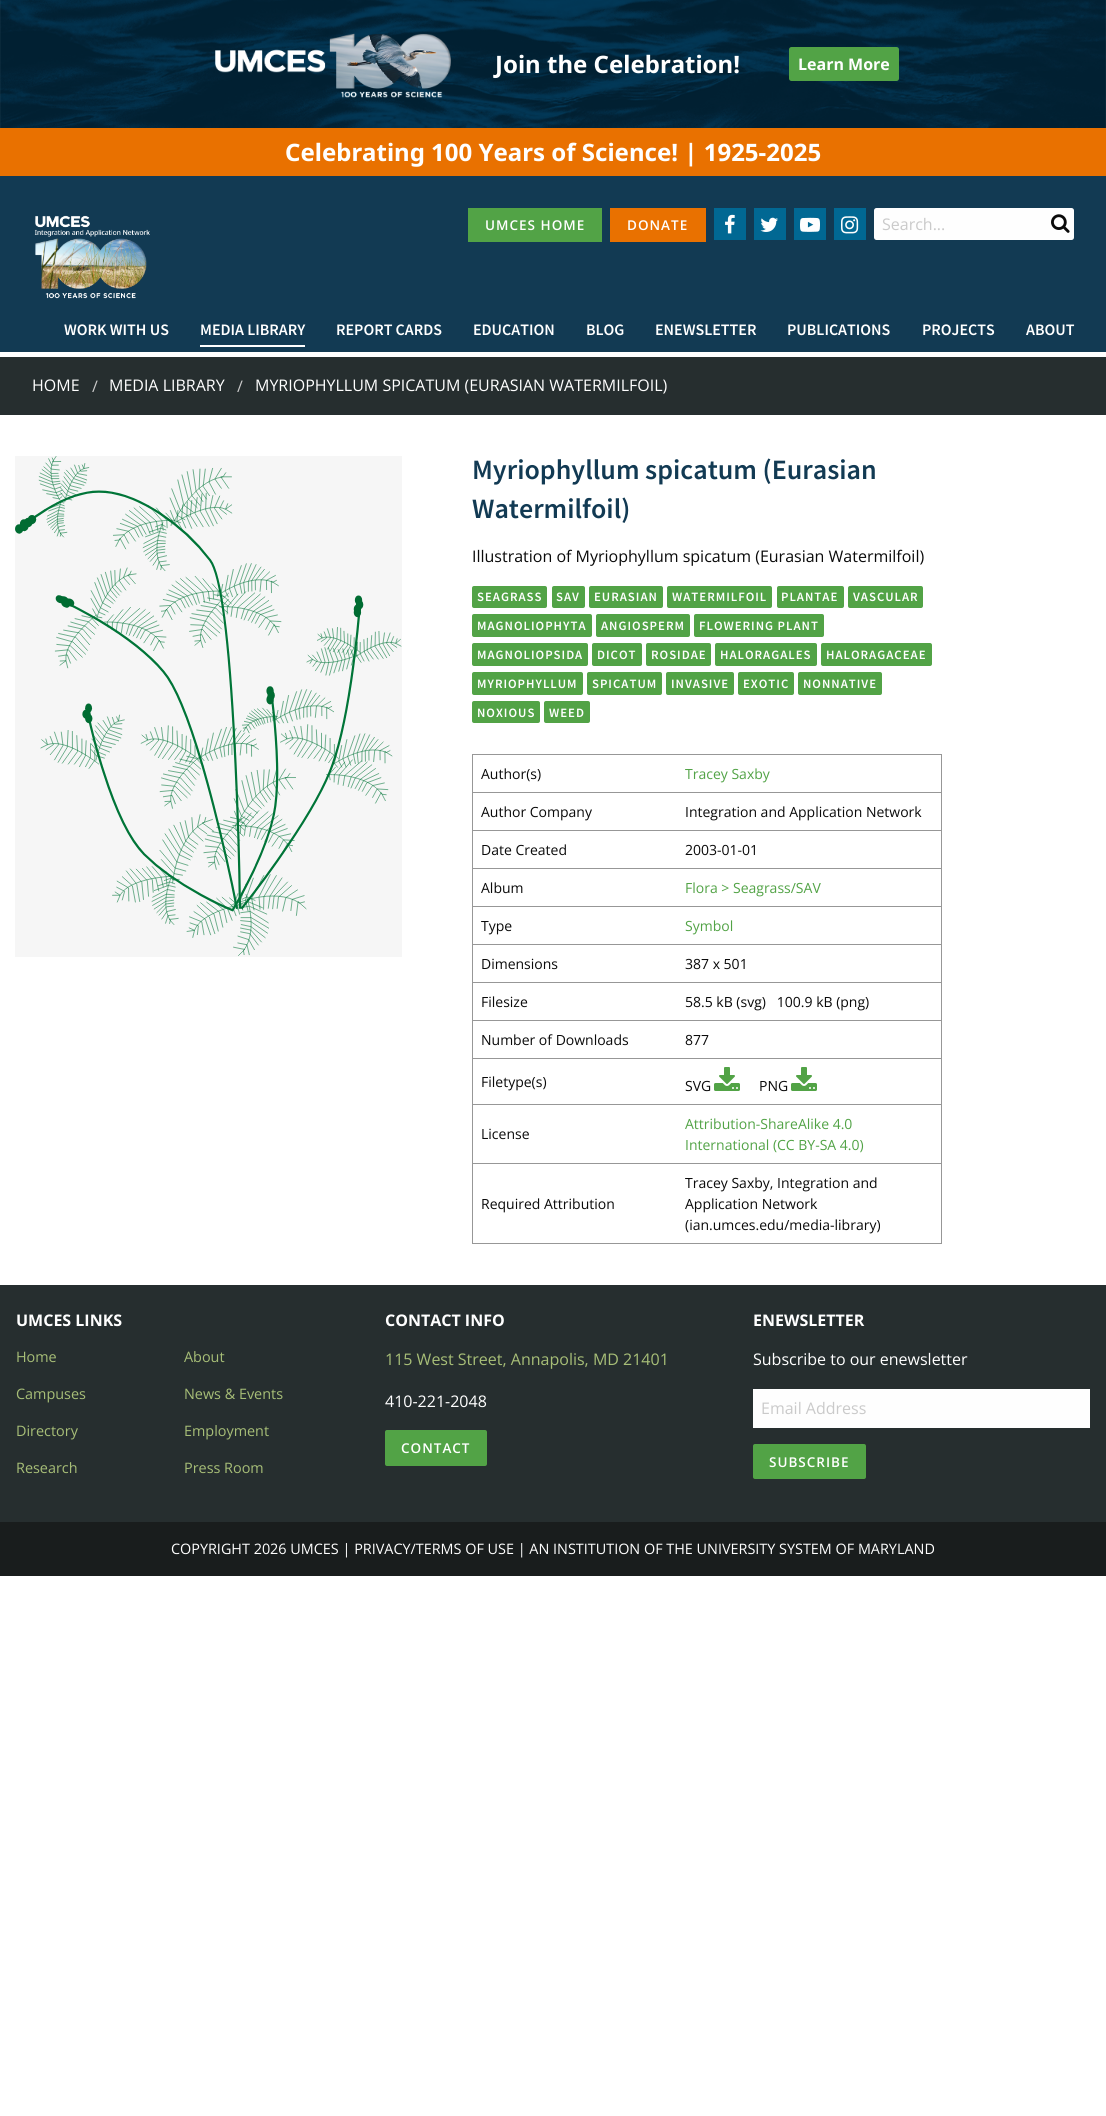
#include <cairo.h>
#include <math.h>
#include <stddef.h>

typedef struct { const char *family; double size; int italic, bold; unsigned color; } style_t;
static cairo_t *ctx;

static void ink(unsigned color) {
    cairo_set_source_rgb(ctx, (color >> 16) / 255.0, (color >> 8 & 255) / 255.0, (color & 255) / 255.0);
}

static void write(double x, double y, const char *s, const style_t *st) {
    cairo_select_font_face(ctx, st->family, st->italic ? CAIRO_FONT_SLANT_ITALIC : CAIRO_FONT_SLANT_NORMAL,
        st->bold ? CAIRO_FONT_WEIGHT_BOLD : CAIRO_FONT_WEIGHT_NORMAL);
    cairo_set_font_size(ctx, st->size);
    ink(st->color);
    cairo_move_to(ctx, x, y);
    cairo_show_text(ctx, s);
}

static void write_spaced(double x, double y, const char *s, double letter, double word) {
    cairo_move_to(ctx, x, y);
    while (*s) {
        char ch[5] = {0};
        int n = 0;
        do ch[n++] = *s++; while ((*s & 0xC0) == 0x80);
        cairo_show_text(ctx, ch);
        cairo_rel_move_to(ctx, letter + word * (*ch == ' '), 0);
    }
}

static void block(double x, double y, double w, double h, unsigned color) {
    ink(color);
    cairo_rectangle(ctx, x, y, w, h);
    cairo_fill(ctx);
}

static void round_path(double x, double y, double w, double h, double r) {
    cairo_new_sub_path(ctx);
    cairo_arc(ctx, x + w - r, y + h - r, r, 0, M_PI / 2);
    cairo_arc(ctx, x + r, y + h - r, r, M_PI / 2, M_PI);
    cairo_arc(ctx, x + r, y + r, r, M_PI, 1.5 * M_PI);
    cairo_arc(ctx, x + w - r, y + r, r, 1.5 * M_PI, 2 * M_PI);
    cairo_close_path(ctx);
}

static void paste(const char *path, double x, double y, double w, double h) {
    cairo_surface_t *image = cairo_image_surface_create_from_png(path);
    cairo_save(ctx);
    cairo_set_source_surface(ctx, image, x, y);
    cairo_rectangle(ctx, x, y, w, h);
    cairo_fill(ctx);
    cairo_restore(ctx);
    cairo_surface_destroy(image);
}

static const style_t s1 = {"Noto Sans", 24, 0, 1, 0xffffff};
static const style_t s2 = {"Open Sans", 16, 0, 1, 0xffffff};
static const style_t s3 = {"Open Sans", 16, 0, 0, 0xcacaca};
static const style_t s4 = {"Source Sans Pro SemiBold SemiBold", 16, 0, 0, 0xffffff};
static const style_t s5 = {"Open Sans", 16, 0, 0, 0xffffff};
static const style_t s6 = {"Source Sans Pro SemiBold SemiBold", 28, 0, 0, 0x123a53};
static const style_t s7 = {"Open Sans", 16, 0, 0, 0x0a0a0a};
static const style_t s8 = {"Open Sans", 14, 0, 0, 0x0a0a0a};
static const style_t s9 = {"Open Sans", 14, 0, 0, 0x52a346};
static const style_t s10 = {"Open Sans", 14.4, 0, 0, 0xa7be77};
static const style_t s11 = {"Open Sans", 16, 0, 0, 0xa7be77};
static const style_t s12 = {"Open Sans", 14.4, 0, 0, 0xffffff};

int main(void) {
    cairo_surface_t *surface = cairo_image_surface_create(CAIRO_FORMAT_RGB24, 1106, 2116);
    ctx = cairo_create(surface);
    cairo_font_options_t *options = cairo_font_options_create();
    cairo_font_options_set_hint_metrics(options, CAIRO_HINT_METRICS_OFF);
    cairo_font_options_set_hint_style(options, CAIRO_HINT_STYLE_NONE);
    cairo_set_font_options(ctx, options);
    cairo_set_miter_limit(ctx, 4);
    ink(0xffffff);
    cairo_paint(ctx);
    paste("pic1.png", 0, 0, 1106, 128);
    paste("pic2.png", 215, 33, 236, 65);
    write(495, 73, "Join the Celebration!", &s1);
    ink(0x52a346);
    round_path(789, 47, 110, 34, 2.5);
    cairo_fill(ctx);
    write(798, 70, "Learn More", &s2);
    block(0, 128, 1106, 48, 0xe97100);
    write(285, 161, "Celebrating 100 Years of Science! | 1925-2025", &s1);
    block(0, 176, 1106, 176, 0x123a53);
    paste("pic3.png", 34, 215, 116, 84);
    block(468, 208, 134, 34, 0x52a346);
    cairo_select_font_face(ctx, "Open Sans SemiBold", CAIRO_FONT_SLANT_NORMAL, CAIRO_FONT_WEIGHT_NORMAL);
    cairo_set_font_size(ctx, 13.5);
    ink(0xffffff);
    write_spaced(485, 230, "UMCES HOME", 1, 0);
    block(610, 208, 96, 34, 0xe97100);
    ink(0xffffff);
    write_spaced(627, 230, "DONATE", 1, 0);
    block(714, 208, 32, 32, 0x016893);
    paste("pic4.png", 725, 214, 10, 20);
    block(754, 208, 32, 32, 0x016893);
    paste("pic5.png", 760, 217, 18, 15);
    block(794, 208, 32, 32, 0x016893);
    paste("pic6.png", 800, 217, 20, 15);
    block(834, 208, 32, 32, 0x016893);
    paste("pic7.png", 841, 216, 18, 18);
    ink(0xfefefe);
    round_path(874, 208, 200, 32, 2.5);
    cairo_fill(ctx);
    write(882, 230, "Search...", &s3);
    paste("pic8.png", 1051, 214, 19, 19);
    write(64, 335, "WORK WITH US", &s4);
    block(200, 345, 105, 2, 0xfefefe);
    write(200, 335, "MEDIA LIBRARY", &s4);
    write(336, 335, "REPORT CARDS", &s4);
    write(473, 335, "EDUCATION", &s4);
    write(586, 335, "BLOG", &s4);
    write(655, 335, "ENEWSLETTER", &s4);
    write(787, 335, "PUBLICATIONS", &s4);
    write(922, 335, "PROJECTS", &s4);
    write(1026, 335, "ABOUT", &s4);
    block(0, 357, 1106, 58, 0x262e2f);
    write(32, 391, "HOME", &s5);
    write(92, 392, "/", &s3);
    write(109, 391, "MEDIA LIBRARY", &s5);
    write(237, 392, "/", &s3);
    write(255, 391, "MYRIOPHYLLUM SPICATUM (EURASIAN WATERMILFOIL)", &s5);
    block(15, 456, 387, 501, 0xf6f6f6);
    paste("pic9.png", 15, 456, 387, 500);
    write(472, 479, "Myriophyllum spicatum (Eurasian", &s6);
    write(472, 518, "Watermilfoil)", &s6);
    write(472, 562, "Illustration of Myriophyllum spicatum (Eurasian Watermilfoil)", &s7);
    ink(0x52a346);
    round_path(472, 586, 75, 22, 2);
    cairo_fill(ctx);
    cairo_select_font_face(ctx, "Source Sans Pro SemiBold SemiBold", CAIRO_FONT_SLANT_NORMAL, CAIRO_FONT_WEIGHT_NORMAL);
    cairo_set_font_size(ctx, 12.75);
    ink(0xffffff);
    write_spaced(477, 601, "SEAGRASS", 1, 0);
    ink(0x52a346);
    round_path(552, 586, 33, 22, 2);
    cairo_fill(ctx);
    ink(0xffffff);
    write_spaced(556, 601, "SAV", 1, 0);
    ink(0x52a346);
    round_path(589, 586, 74, 22, 2);
    cairo_fill(ctx);
    ink(0xffffff);
    write_spaced(594, 601, "EURASIAN", 1, 0);
    ink(0x52a346);
    round_path(667, 586, 105, 22, 2);
    cairo_fill(ctx);
    ink(0xffffff);
    write_spaced(672, 601, "WATERMILFOIL", 1, 0);
    ink(0x52a346);
    round_path(777, 586, 67, 22, 2);
    cairo_fill(ctx);
    ink(0xffffff);
    write_spaced(781, 601, "PLANTAE", 1, 0);
    ink(0x52a346);
    round_path(848, 586, 75, 22, 2);
    cairo_fill(ctx);
    ink(0xffffff);
    write_spaced(853, 601, "VASCULAR", 1, 0);
    ink(0x52a346);
    round_path(472, 614, 120, 23, 2);
    cairo_fill(ctx);
    ink(0xffffff);
    write_spaced(477, 630, "MAGNOLIOPHYTA", 1, 0);
    ink(0x52a346);
    round_path(596, 614, 94, 23, 2);
    cairo_fill(ctx);
    ink(0xffffff);
    write_spaced(601, 630, "ANGIOSPERM", 1, 0);
    ink(0x52a346);
    round_path(694, 614, 130, 23, 2);
    cairo_fill(ctx);
    ink(0xffffff);
    write_spaced(699, 630, "FLOWERING PLANT", 1, 0);
    ink(0x52a346);
    round_path(472, 643, 116, 23, 2);
    cairo_fill(ctx);
    ink(0xffffff);
    write_spaced(477, 659, "MAGNOLIOPSIDA", 1, 0);
    ink(0x52a346);
    round_path(592, 643, 50, 23, 2);
    cairo_fill(ctx);
    ink(0xffffff);
    write_spaced(597, 659, "DICOT", 1, 0);
    ink(0x52a346);
    round_path(646, 643, 65, 23, 2);
    cairo_fill(ctx);
    ink(0xffffff);
    write_spaced(651, 659, "ROSIDAE", 1, 0);
    ink(0x52a346);
    round_path(715, 643, 102, 23, 2);
    cairo_fill(ctx);
    ink(0xffffff);
    write_spaced(720, 659, "HALORAGALES", 1, 0);
    ink(0x52a346);
    round_path(821, 643, 111, 23, 2);
    cairo_fill(ctx);
    ink(0xffffff);
    write_spaced(826, 659, "HALORAGACEAE", 1, 0);
    ink(0x52a346);
    round_path(472, 672, 111, 23, 2);
    cairo_fill(ctx);
    ink(0xffffff);
    write_spaced(477, 688, "MYRIOPHYLLUM", 1, 0);
    ink(0x52a346);
    round_path(587, 672, 75, 23, 2);
    cairo_fill(ctx);
    ink(0xffffff);
    write_spaced(592, 688, "SPICATUM", 1, 0);
    ink(0x52a346);
    round_path(666, 672, 68, 23, 2);
    cairo_fill(ctx);
    ink(0xffffff);
    write_spaced(671, 688, "INVASIVE", 1, 0);
    ink(0x52a346);
    round_path(738, 672, 56, 23, 2);
    cairo_fill(ctx);
    ink(0xffffff);
    write_spaced(743, 688, "EXOTIC", 1, 0);
    ink(0x52a346);
    round_path(798, 672, 84, 23, 2);
    cairo_fill(ctx);
    ink(0xffffff);
    write_spaced(803, 688, "NONNATIVE", 1, 0);
    ink(0x52a346);
    round_path(472, 701, 68, 22, 2);
    cairo_fill(ctx);
    ink(0xffffff);
    write_spaced(477, 717, "NOXIOUS", 1, 0);
    ink(0x52a346);
    round_path(544, 701, 46, 22, 2);
    cairo_fill(ctx);
    ink(0xffffff);
    write_spaced(549, 717, "WEED", 1, 0);
    block(472, 754, 470, 1, 0x979797);
    block(472, 792, 470, 1, 0x979797);
    block(472, 830, 470, 1, 0x979797);
    block(472, 868, 470, 1, 0x979797);
    block(472, 906, 470, 1, 0x979797);
    block(472, 944, 470, 1, 0x979797);
    block(472, 982, 470, 1, 0x979797);
    block(472, 1020, 470, 1, 0x979797);
    block(472, 1058, 470, 1, 0x979797);
    block(472, 1104, 470, 1, 0x979797);
    block(472, 1163, 470, 1, 0x979797);
    block(941, 1163, 1, 81, 0x979797);
    block(472, 1243, 470, 1, 0x979797);
    block(472, 1163, 1, 81, 0x979797);
    block(472, 1104, 1, 60, 0x979797);
    block(472, 1058, 1, 47, 0x979797);
    block(472, 1020, 1, 39, 0x979797);
    block(472, 982, 1, 39, 0x979797);
    block(472, 944, 1, 39, 0x979797);
    block(472, 906, 1, 39, 0x979797);
    block(472, 868, 1, 39, 0x979797);
    block(472, 830, 1, 39, 0x979797);
    block(472, 792, 1, 39, 0x979797);
    block(472, 754, 1, 39, 0x979797);
    write(481, 779, "Author(s)", &s8);
    block(941, 1104, 1, 60, 0x979797);
    block(941, 1058, 1, 47, 0x979797);
    block(941, 1020, 1, 39, 0x979797);
    block(941, 982, 1, 39, 0x979797);
    block(941, 944, 1, 39, 0x979797);
    block(941, 906, 1, 39, 0x979797);
    block(941, 868, 1, 39, 0x979797);
    block(941, 830, 1, 39, 0x979797);
    block(941, 792, 1, 39, 0x979797);
    block(941, 754, 1, 39, 0x979797);
    write(685, 779, "Tracey Saxby", &s9);
    write(481, 817, "Author Company", &s8);
    write(685, 817, "Integration and Application Network", &s8);
    write(481, 855, "Date Created", &s8);
    write(685, 855, "2003-01-01", &s8);
    write(481, 893, "Album", &s8);
    write(685, 893, "Flora > Seagrass/SAV", &s9);
    write(481, 931, "Type", &s8);
    write(685, 931, "Symbol", &s9);
    write(481, 969, "Dimensions", &s8);
    write(685, 969, "387 x 501", &s8);
    write(481, 1007, "Filesize", &s8);
    write(685, 1007, "58.5 kB (svg)   100.9 kB (png)", &s8);
    write(481, 1045, "Number of Downloads", &s8);
    write(685, 1045, "877", &s8);
    write(481, 1087, "Filetype(s)", &s8);
    write(685, 1091, "SVG", &s8);
    paste("pic10.png", 714, 1067, 26, 24);
    write(759, 1091, "PNG", &s8);
    paste("pic10.png", 791, 1067, 26, 24);
    write(481, 1139, "License", &s8);
    write(685, 1129, "Attribution-ShareAlike 4.0", &s9);
    write(685, 1150, "International (CC BY-SA 4.0)", &s9);
    write(481, 1209, "Required Attribution", &s8);
    write(685, 1188, "Tracey Saxby, Integration and", &s8);
    write(685, 1209, "Application Network", &s8);
    write(685, 1230, "(ian.umces.edu/media-library)", &s8);
    block(0, 1285, 1106, 237, 0x262e2f);
    write(16, 1326, "UMCES LINKS", &s2);
    write(16, 1362, "Home", &s10);
    write(184, 1362, "About", &s10);
    write(16, 1399, "Campuses", &s10);
    write(184, 1399, "News & Events", &s10);
    write(16, 1436, "Directory", &s10);
    write(184, 1436, "Employment", &s10);
    write(16, 1473, "Research", &s10);
    write(184, 1473, "Press Room", &s10);
    write(385, 1326, "CONTACT INFO", &s2);
    write(385, 1365, "115 West Street, Annapolis, MD 21401", &s11);
    write(385, 1407, "410-221-2048", &s5);
    ink(0x52a346);
    round_path(385, 1430, 102, 36, 2);
    cairo_fill(ctx);
    cairo_select_font_face(ctx, "Open Sans SemiBold", CAIRO_FONT_SLANT_NORMAL, CAIRO_FONT_WEIGHT_NORMAL);
    cairo_set_font_size(ctx, 13.5);
    ink(0xffffff);
    write_spaced(401, 1453, "CONTACT", 1, 0);
    write(753, 1326, "ENEWSLETTER", &s2);
    write(753, 1365, "Subscribe to our enewsletter", &s5);
    block(753, 1389, 337, 39, 0xfefefe);
    write(761, 1414, "Email Address", &s3);
    ink(0x52a346);
    round_path(753, 1444, 113, 35, 2);
    cairo_fill(ctx);
    cairo_select_font_face(ctx, "Open Sans SemiBold", CAIRO_FONT_SLANT_NORMAL, CAIRO_FONT_WEIGHT_NORMAL);
    cairo_set_font_size(ctx, 13.5);
    ink(0xffffff);
    write_spaced(769, 1467, "SUBSCRIBE", 1, 0);
    block(0, 1522, 1106, 54, 0x191d1d);
    write(171, 1554, "COPYRIGHT 2026 UMCES | PRIVACY/TERMS OF USE | AN INSTITUTION OF THE UNIVERSITY SYSTEM OF MARYLAND", &s12);
    cairo_surface_write_to_png(surface, "screenshot.png");
    cairo_font_options_destroy(options);
    cairo_destroy(ctx);
    cairo_surface_destroy(surface);
    return 0;
}
